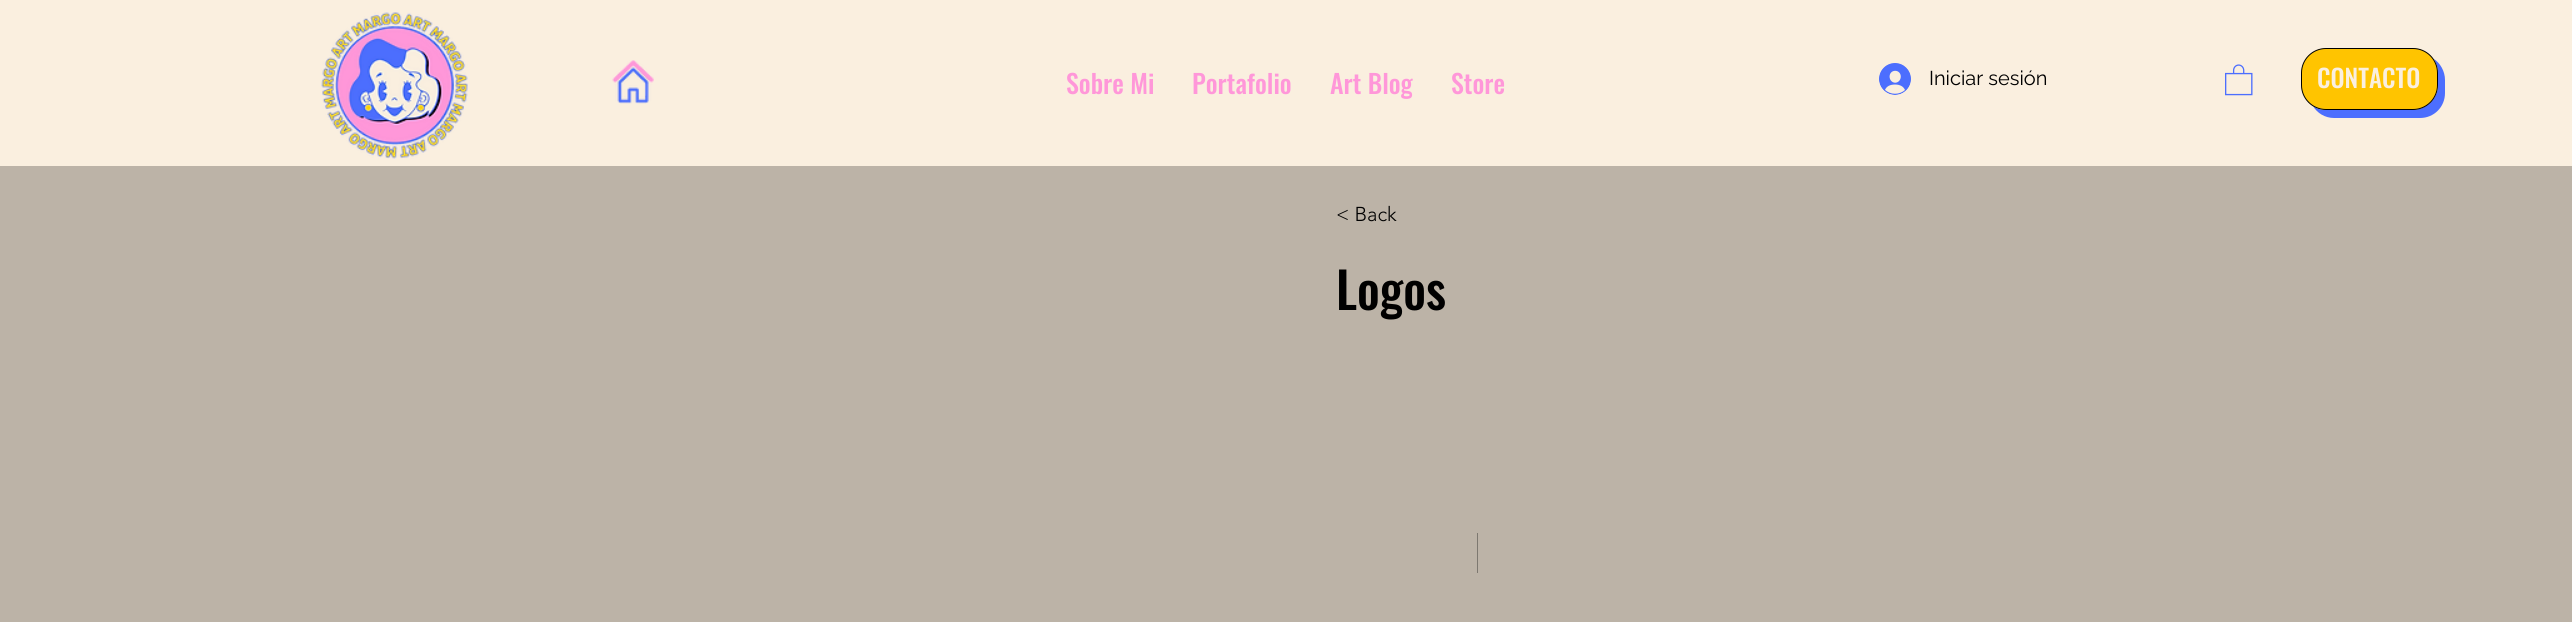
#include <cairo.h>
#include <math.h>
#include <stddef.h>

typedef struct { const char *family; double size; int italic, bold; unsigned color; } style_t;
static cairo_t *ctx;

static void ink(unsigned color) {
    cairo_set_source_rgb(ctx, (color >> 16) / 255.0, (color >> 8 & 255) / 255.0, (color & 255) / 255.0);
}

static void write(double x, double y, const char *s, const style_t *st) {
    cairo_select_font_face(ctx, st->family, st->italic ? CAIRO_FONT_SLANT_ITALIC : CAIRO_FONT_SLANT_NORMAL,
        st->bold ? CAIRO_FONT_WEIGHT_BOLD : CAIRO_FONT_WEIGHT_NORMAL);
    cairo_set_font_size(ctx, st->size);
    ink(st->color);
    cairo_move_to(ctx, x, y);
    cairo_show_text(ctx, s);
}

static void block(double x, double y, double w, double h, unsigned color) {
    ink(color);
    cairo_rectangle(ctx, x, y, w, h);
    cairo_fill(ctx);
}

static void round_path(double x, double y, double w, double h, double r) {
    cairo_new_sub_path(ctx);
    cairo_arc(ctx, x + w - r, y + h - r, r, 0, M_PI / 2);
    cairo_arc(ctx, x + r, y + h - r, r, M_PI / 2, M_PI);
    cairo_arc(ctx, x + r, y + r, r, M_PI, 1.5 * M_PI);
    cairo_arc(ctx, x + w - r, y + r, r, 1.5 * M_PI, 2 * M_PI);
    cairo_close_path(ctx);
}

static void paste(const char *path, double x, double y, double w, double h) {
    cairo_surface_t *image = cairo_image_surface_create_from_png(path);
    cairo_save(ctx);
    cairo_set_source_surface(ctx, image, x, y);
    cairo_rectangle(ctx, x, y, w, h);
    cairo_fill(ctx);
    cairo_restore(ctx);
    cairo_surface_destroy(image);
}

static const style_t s1 = {"Oswald Medium", 26, 0, 0, 0xff97d9};
static const style_t s2 = {"Raleway", 20, 0, 0, 0x000000};
static const style_t s3 = {"Oswald Medium", 25, 0, 0, 0xfaefdf};
static const style_t s4 = {"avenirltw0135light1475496 Light", 20, 0, 0, 0x000000};
static const style_t s5 = {"Oswald Medium", 50, 0, 0, 0x000000};

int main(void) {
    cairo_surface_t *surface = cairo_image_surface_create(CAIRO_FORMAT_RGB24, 2572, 622);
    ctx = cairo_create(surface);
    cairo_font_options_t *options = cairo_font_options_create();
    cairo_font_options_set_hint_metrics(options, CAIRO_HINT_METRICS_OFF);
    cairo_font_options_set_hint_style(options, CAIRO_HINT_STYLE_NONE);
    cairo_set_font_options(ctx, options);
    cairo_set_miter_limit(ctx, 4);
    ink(0xfaefdf);
    cairo_paint(ctx);
    paste("pic1.png", 321, 12, 147, 147);
    paste("pic2.png", 612, 60, 42, 44);
    write(1066, 94, "Sobre Mi", &s1);
    write(1192, 94, "Portafolio", &s1);
    write(1330, 94, "Art Blog", &s1);
    write(1451, 94, "Store", &s1);
    paste("pic3.png", 1879, 63, 32, 32);
    write(1929, 85, "Iniciar sesión", &s2);
    paste("pic4.png", 2225, 64, 28, 32);
    ink(0x4c6efe);
    cairo_new_path(ctx);
    cairo_move_to(ctx, 2313, 106);
    cairo_curve_to(ctx, 2317, 113, 2325, 118, 2334, 118);
    cairo_line_to(ctx, 2420, 118);
    cairo_curve_to(ctx, 2434, 118, 2445, 107, 2445, 93);
    cairo_line_to(ctx, 2445, 80);
    cairo_curve_to(ctx, 2445, 71, 2440, 63, 2434, 59);
    cairo_curve_to(ctx, 2436, 63, 2438, 68, 2438, 72);
    cairo_line_to(ctx, 2438, 85);
    cairo_curve_to(ctx, 2438, 99, 2426, 110, 2412, 110);
    cairo_line_to(ctx, 2326, 110);
    cairo_curve_to(ctx, 2321, 110, 2317, 109, 2313, 106);
    cairo_close_path(ctx);
    cairo_fill(ctx);
    ink(0xffc400);
    round_path(2301.5, 48.5, 136, 61, 24.5);
    cairo_fill_preserve(ctx);
    ink(0x000000);
    cairo_set_line_width(ctx, 1);
    cairo_stroke(ctx);
    write(2317, 88, "CONTACTO", &s3);
    block(0, 166, 2572, 456, 0xbcb3a7);
    write(1336, 221, "< Back", &s4);
    write(1336, 310, "Logos", &s5);
    block(1477, 533, 1, 40, 0x7d7870);
    cairo_surface_write_to_png(surface, "screenshot.png");
    cairo_font_options_destroy(options);
    cairo_destroy(ctx);
    cairo_surface_destroy(surface);
    return 0;
}
